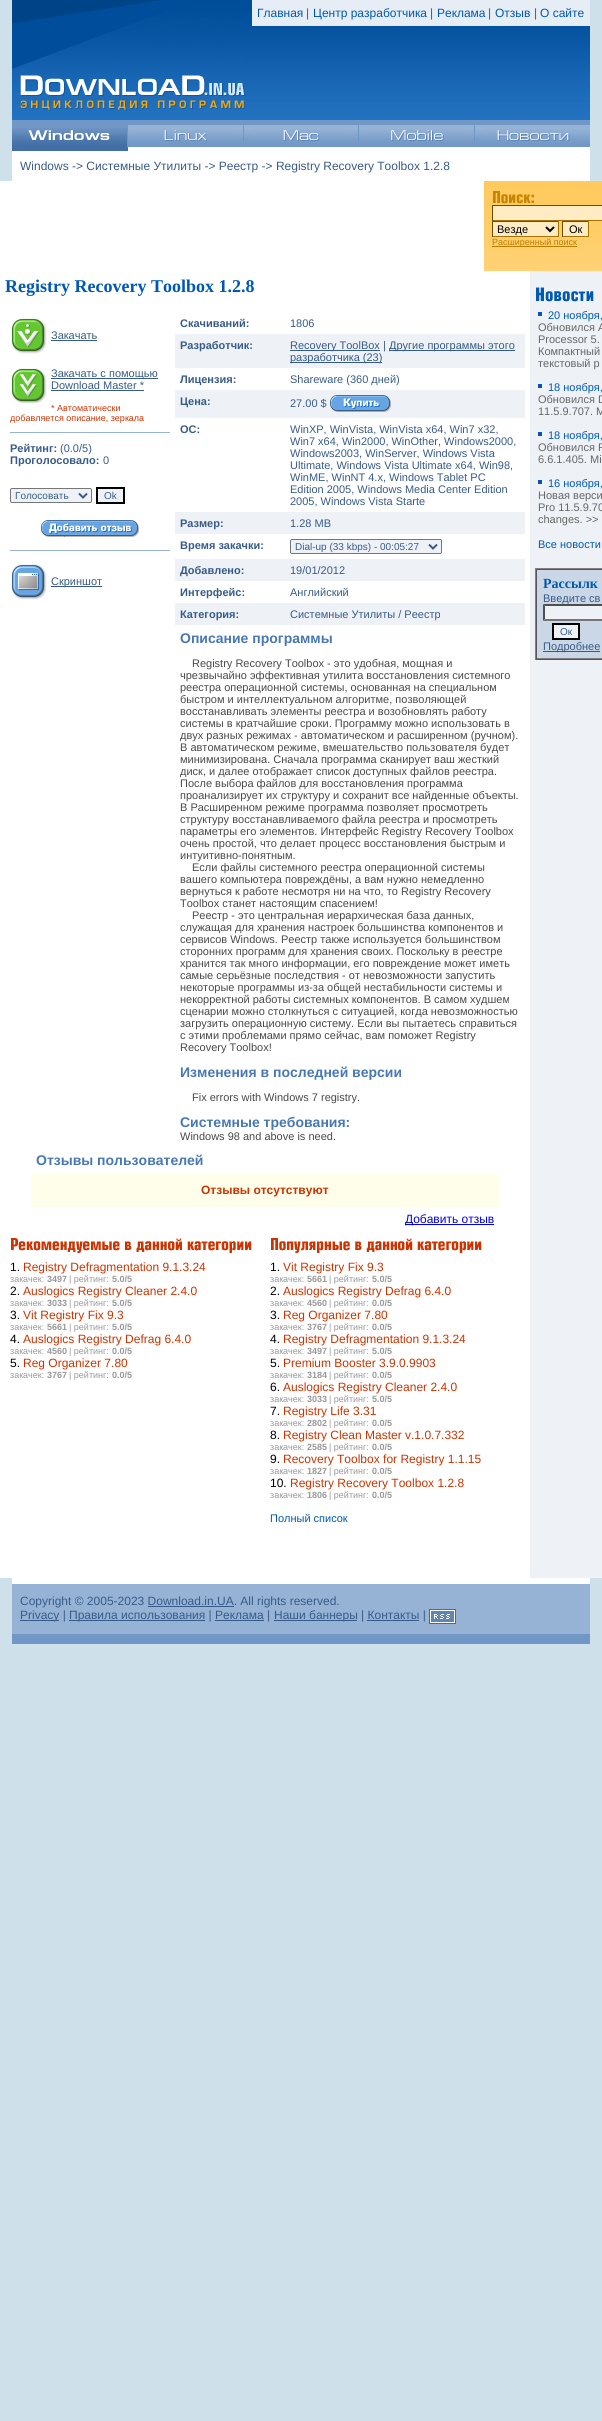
#include <cairo.h>
#include <math.h>
#include <stddef.h>

typedef struct { const char *family; double size; int italic, bold; unsigned color; } style_t;
static cairo_t *ctx;

static void ink(unsigned color) {
    cairo_set_source_rgb(ctx, (color >> 16) / 255.0, (color >> 8 & 255) / 255.0, (color & 255) / 255.0);
}

static void write(double x, double y, const char *s, const style_t *st) {
    cairo_select_font_face(ctx, st->family, st->italic ? CAIRO_FONT_SLANT_ITALIC : CAIRO_FONT_SLANT_NORMAL,
        st->bold ? CAIRO_FONT_WEIGHT_BOLD : CAIRO_FONT_WEIGHT_NORMAL);
    cairo_set_font_size(ctx, st->size);
    ink(st->color);
    cairo_move_to(ctx, x, y);
    cairo_show_text(ctx, s);
}

static void block(double x, double y, double w, double h, unsigned color) {
    ink(color);
    cairo_rectangle(ctx, x, y, w, h);
    cairo_fill(ctx);
}

static void round_path(double x, double y, double w, double h, double r) {
    cairo_new_sub_path(ctx);
    cairo_arc(ctx, x + w - r, y + h - r, r, 0, M_PI / 2);
    cairo_arc(ctx, x + r, y + h - r, r, M_PI / 2, M_PI);
    cairo_arc(ctx, x + r, y + r, r, M_PI, 1.5 * M_PI);
    cairo_arc(ctx, x + w - r, y + r, r, 1.5 * M_PI, 2 * M_PI);
    cairo_close_path(ctx);
}

static void paste(const char *path, double x, double y, double w, double h) {
    cairo_surface_t *image = cairo_image_surface_create_from_png(path);
    cairo_save(ctx);
    cairo_set_source_surface(ctx, image, x, y);
    cairo_rectangle(ctx, x, y, w, h);
    cairo_fill(ctx);
    cairo_restore(ctx);
    cairo_surface_destroy(image);
}

static const style_t s1 = {"Liberation Sans", 12, 0, 0, 0x0059b1};
static const style_t s2 = {"Liberation Sans", 12, 0, 0, 0x375b88};
static const style_t s3 = {"Liberation Sans", 11, 0, 0, 0x000000};
static const style_t s4 = {"Liberation Sans", 9, 0, 0, 0xbb7e00};
static const style_t s5 = {"Liberation Serif", 18, 0, 1, 0x0059b1};
static const style_t s6 = {"Liberation Sans", 11, 0, 1, 0x375b88};
static const style_t s7 = {"Liberation Sans", 11, 0, 0, 0x375b88};
static const style_t s8 = {"Liberation Sans", 9, 0, 0, 0xcc3300};
static const style_t s9 = {"Liberation Sans", 10, 0, 0, 0x375b88};
static const style_t s10 = {"Liberation Sans", 14, 0, 1, 0x4878b3};
static const style_t s11 = {"Liberation Sans", 11, 0, 0, 0x494949};
static const style_t s12 = {"Liberation Sans", 12, 0, 1, 0xcc3300};
static const style_t s13 = {"Liberation Sans", 12, 0, 0, 0x0000ee};
static const style_t s14 = {"Liberation Sans", 12, 0, 0, 0x000000};
static const style_t s15 = {"Liberation Sans", 12, 0, 0, 0xcc3300};
static const style_t s16 = {"Liberation Sans", 9, 0, 0, 0x999999};
static const style_t s17 = {"Liberation Sans", 9, 0, 1, 0x999999};
static const style_t s18 = {"Liberation Sans", 11, 0, 0, 0x0059b1};
static const style_t s19 = {"Liberation Sans", 11, 0, 0, 0x666666};
static const style_t s20 = {"Liberation Serif", 14, 0, 1, 0x0059b1};

int main(void) {
    cairo_surface_t *surface = cairo_image_surface_create(CAIRO_FORMAT_RGB24, 602, 2421);
    ctx = cairo_create(surface);
    cairo_font_options_t *options = cairo_font_options_create();
    cairo_font_options_set_hint_metrics(options, CAIRO_HINT_METRICS_OFF);
    cairo_font_options_set_hint_style(options, CAIRO_HINT_STYLE_NONE);
    cairo_set_font_options(ctx, options);
    cairo_set_miter_limit(ctx, 4);
    ink(0xcee0ea);
    cairo_paint(ctx);
    paste("pic1.png", 12, 0, 578, 120);
    paste("pic2.png", 12, 0, 233, 111);
    block(252, 0, 338, 26, 0xe7edf5);
    write(257, 17, "Главная", &s1);
    write(306, 17, "|", &s2);
    write(313, 17, "Центр разработчика", &s1);
    write(430, 17, "|", &s2);
    write(437, 17, "Реклама", &s1);
    write(488, 17, "|", &s2);
    write(495, 17, "Отзыв", &s1);
    write(534, 17, "|", &s2);
    write(540, 17, "О сайте", &s1);
    block(128, 125, 462, 5, 0x96b3d6);
    block(12, 120, 578, 5, 0x7197c6);
    block(12, 125, 115, 3, 0x7197c6);
    paste("pic3.png", 12, 128, 115, 19);
    paste("pic4.png", 28, 130, 82, 10);
    block(127, 125, 1, 22, 0x7197c6);
    paste("pic5.png", 128, 130, 115, 17);
    paste("pic6.png", 136, 129, 95, 12);
    block(243, 125, 1, 22, 0x7197c6);
    paste("pic7.png", 244, 130, 114, 17);
    paste("pic8.png", 252, 129, 95, 12);
    block(358, 125, 1, 22, 0x7197c6);
    paste("pic5.png", 359, 130, 115, 17);
    paste("pic9.png", 368, 129, 95, 12);
    block(474, 125, 1, 22, 0x7197c6);
    paste("pic5.png", 475, 130, 115, 17);
    paste("pic10.png", 484, 129, 95, 12);
    block(12, 147, 116, 4, 0x426fa6);
    block(128, 147, 462, 4, 0xffffff);
    block(12, 151, 578, 30, 0xffffff);
    write(20, 170, "Windows -> Системные Утилиты -> Реестр -> Registry Recovery Toolbox 1.2.8", &s2);
    block(0, 181, 484, 90, 0xffffff);
    paste("pic11.png", 484, 181, 118, 90);
    paste("pic12.png", 493, 191, 41, 13);
    block(493, 206, 109, 14, 0xffecc4);
    block(492, 205, 110, 1, 0x714d00);
    block(492, 220, 110, 1, 0xaa7300);
    block(492, 205, 1, 16, 0x714d00);
    block(493, 222, 65, 14, 0xffecc4);
    block(492, 221, 67, 1, 0x714d00);
    block(558, 221, 1, 16, 0xaa7300);
    block(492, 236, 67, 1, 0xaa7300);
    block(492, 221, 1, 16, 0x714d00);
    cairo_new_path(ctx);
    cairo_move_to(ctx, 546, 227);
    cairo_line_to(ctx, 550, 231);
    cairo_line_to(ctx, 554, 227);
    ink(0x000000);
    cairo_stroke(ctx);
    write(497, 233, "Везде", &s3);
    block(563, 222, 25, 14, 0xffecc4);
    block(562, 221, 27, 1, 0x714d00);
    block(588, 221, 1, 16, 0xaa7300);
    block(562, 236, 27, 1, 0xaa7300);
    block(562, 221, 1, 16, 0x714d00);
    write(569, 233, "Ок", &s3);
    block(492, 246, 85, 1, 0xbb7e00);
    write(492, 245, "Расширенный поиск", &s4);
    block(0, 271, 530, 1307, 0xffffff);
    write(5, 292, "Registry Recovery Toolbox 1.2.8", &s5);
    write(180, 327, "Скачиваний:", &s6);
    write(290, 327, "1806", &s7);
    paste("pic13.png", 11, 318, 36, 36);
    write(51, 339, "Закачать", &s7);
    block(51, 340, 46, 1, 0x375b88);
    paste("pic14.png", 11, 368, 36, 36);
    block(51, 378, 107, 1, 0x375b88);
    write(51, 377, "Закачать с помощью", &s7);
    write(51, 389, "Download Master *", &s7);
    block(51, 390, 93, 1, 0x375b88);
    write(51, 411, "* Автоматически", &s8);
    write(10, 421, "добавляется описание, зеркала", &s8);
    block(10, 432, 160, 1, 0x96b3d6);
    write(10, 452, "Рейтинг:", &s6);
    write(60, 452, "(0.0/5)", &s7);
    write(10, 464, "Проголосовало:", &s6);
    write(103, 464, "0", &s7);
    ink(0xeef2f7);
    round_path(10.5, 488.5, 81, 14, 1.5);
    cairo_fill_preserve(ctx);
    ink(0x767676);
    cairo_set_line_width(ctx, 1);
    cairo_stroke(ctx);
    cairo_new_path(ctx);
    cairo_move_to(ctx, 79, 493.5);
    cairo_line_to(ctx, 83, 497.5);
    cairo_line_to(ctx, 87, 493.5);
    ink(0x375b88);
    cairo_set_line_width(ctx, 2);
    cairo_stroke(ctx);
    write(15, 499, "Голосовать", &s9);
    ink(0xeef2f7);
    cairo_rectangle(ctx, 97, 488, 27, 15);
    cairo_fill_preserve(ctx);
    ink(0x000000);
    cairo_stroke(ctx);
    write(104, 499, "Ok", &s9);
    paste("pic15.png", 41, 520, 98, 17);
    block(10, 550, 160, 1, 0x96b3d6);
    paste("pic16.png", 11, 564, 36, 36);
    block(51, 586, 51, 1, 0x375b88);
    write(51, 585, "Скриншот", &s7);
    block(175, 334, 350, 34, 0xeef2f7);
    write(180, 349, "Разработчик:", &s6);
    block(290, 350, 90, 1, 0x375b88);
    write(290, 349, "Recovery ToolBox |", &s7);
    block(389, 350, 126, 1, 0x375b88);
    write(389, 349, "Другие программы этого", &s7);
    block(290, 362, 92, 1, 0x375b88);
    write(290, 361, "разработчика (23)", &s7);
    write(180, 383, "Лицензия:", &s6);
    write(290, 383, "Shareware (360 дней)", &s7);
    block(175, 390, 350, 28, 0xeef2f7);
    write(180, 405, "Цена:", &s6);
    write(290, 407, "27.00 $", &s7);
    paste("pic17.png", 330, 395, 61, 17);
    write(180, 433, "ОС:", &s6);
    write(290, 433, "WinXP, WinVista, WinVista x64, Win7 x32,", &s7);
    write(290, 445, "Win7 x64, Win2000, WinOther, Windows2000,", &s7);
    write(290, 457, "Windows2003, WinServer, Windows Vista", &s7);
    write(290, 469, "Ultimate, Windows Vista Ultimate x64, Win98,", &s7);
    write(290, 481, "WinME, WinNT 4.x, Windows Tablet PC", &s7);
    write(290, 493, "Edition 2005, Windows Media Center Edition", &s7);
    write(290, 505, "2005, Windows Vista Starte", &s7);
    block(175, 512, 350, 22, 0xeef2f7);
    write(180, 527, "Размер:", &s6);
    write(290, 527, "1.28 MB", &s7);
    write(180, 549, "Время закачки:", &s6);
    ink(0xeef2f7);
    round_path(290.5, 539.5, 151, 14, 1.5);
    cairo_fill_preserve(ctx);
    ink(0x767676);
    cairo_set_line_width(ctx, 1);
    cairo_stroke(ctx);
    cairo_new_path(ctx);
    cairo_move_to(ctx, 429, 544.5);
    cairo_line_to(ctx, 433, 548.5);
    cairo_line_to(ctx, 437, 544.5);
    ink(0x375b88);
    cairo_set_line_width(ctx, 2);
    cairo_stroke(ctx);
    write(295, 550, "Dial-up (33 kbps) - 00:05:27", &s9);
    block(175, 559, 350, 22, 0xeef2f7);
    write(180, 574, "Добавлено:", &s6);
    write(290, 574, "19/01/2012", &s7);
    write(180, 596, "Интерфейс:", &s6);
    write(290, 596, "Английский", &s7);
    block(175, 603, 350, 22, 0xeef2f7);
    write(180, 618, "Категория:", &s6);
    write(290, 618, "Системные Утилиты / Реестр", &s7);
    write(180, 643, "Описание программы", &s10);
    write(192, 667, "Registry Recovery Toolbox - это удобная, мощная и", &s11);
    write(180, 679, "чрезвычайно эффективная утилита восстановления системного", &s11);
    write(180, 691, "реестра операционной системы, основанная на специальном", &s11);
    write(180, 703, "быстром и интеллектуальном алгоритме, позволяющей", &s11);
    write(180, 715, "восстанавливать элементы реестра и возобновлять работу", &s11);
    write(180, 727, "системы в кратчайшие сроки. Программу можно использовать в", &s11);
    write(180, 739, "двух разных режимах - автоматическом и расширенном (ручном).", &s11);
    write(180, 751, "В автоматическом режиме, вмешательство пользователя будет", &s11);
    write(180, 763, "минимизирована. Сначала программа сканирует ваш жесткий", &s11);
    write(180, 775, "диск, и далее отображает список доступных файлов реестра.", &s11);
    write(180, 787, "После выбора файлов для восстановления программа", &s11);
    write(180, 799, "проанализирует их структуру и сохранит все найденные объекты.", &s11);
    write(180, 811, "В Расширенном режиме программа позволяет просмотреть", &s11);
    write(180, 823, "структуру восстанавливаемого файла реестра и просмотреть", &s11);
    write(180, 835, "параметры его элементов. Интерфейс Registry Recovery Toolbox", &s11);
    write(180, 847, "очень простой, что делает процесс восстановления быстрым и", &s11);
    write(180, 859, "интуитивно-понятным.", &s11);
    write(192, 871, "Если файлы системного реестра операционной системы", &s11);
    write(180, 883, "вашего компьютера повреждёны, а вам нужно немедленно", &s11);
    write(180, 895, "вернуться к работе несмотря ни на что, то Registry Recovery", &s11);
    write(180, 907, "Toolbox станет настоящим спасением!", &s11);
    write(192, 919, "Реестр - это центральная иерархическая база данных,", &s11);
    write(180, 931, "служащая для хранения настроек большинства компонентов и", &s11);
    write(180, 943, "сервисов Windows. Реестр также используется большинством", &s11);
    write(180, 955, "сторонних программ для хранения своих. Поскольку в реестре", &s11);
    write(180, 967, "хранится так много информации, его повреждение может иметь", &s11);
    write(180, 979, "самые серьёзные последствия - от невозможности запустить", &s11);
    write(180, 991, "некоторые программы из-за общей нестабильности системы и", &s11);
    write(180, 1003, "некорректной работы системных компонентов. В самом худшем", &s11);
    write(180, 1015, "сценарии можно столкнуться с ситуацией, когда невозможностью", &s11);
    write(180, 1027, "загрузить операционную систему. Если вы пытаетесь справиться", &s11);
    write(180, 1039, "с этими проблемами прямо сейчас, вам поможет Registry", &s11);
    write(180, 1051, "Recovery Toolbox!", &s11);
    write(180, 1077, "Изменения в последней версии", &s10);
    write(192, 1101, "Fix errors with Windows 7 registry.", &s11);
    write(180, 1127, "Системные требования:", &s10);
    write(180, 1140, "Windows 98 and above is need.", &s11);
    write(36, 1165, "Отзывы пользователей", &s10);
    block(31, 1173, 468, 34, 0xfffeea);
    write(201, 1194, "Отзывы отсутствуют", &s12);
    block(405, 1224, 89, 1, 0x0000ee);
    write(405, 1223, "Добавить отзыв", &s13);
    paste("pic18.png", 11, 1238, 241, 15);
    write(10, 1271, "1.", &s14);
    write(23, 1271, "Registry Defragmentation 9.1.3.24", &s15);
    write(10, 1282, "закачек:", &s16);
    write(47, 1282, "3497", &s17);
    write(69, 1282, "| рейтинг:", &s16);
    write(112, 1282, "5.0/5", &s17);
    write(10, 1295, "2.", &s14);
    write(23, 1295, "Auslogics Registry Cleaner 2.4.0", &s15);
    write(10, 1306, "закачек:", &s16);
    write(47, 1306, "3033", &s17);
    write(69, 1306, "| рейтинг:", &s16);
    write(112, 1306, "5.0/5", &s17);
    write(10, 1319, "3.", &s14);
    write(23, 1319, "Vit Registry Fix 9.3", &s15);
    write(10, 1330, "закачек:", &s16);
    write(47, 1330, "5661", &s17);
    write(69, 1330, "| рейтинг:", &s16);
    write(112, 1330, "5.0/5", &s17);
    write(10, 1343, "4.", &s14);
    write(23, 1343, "Auslogics Registry Defrag 6.4.0", &s15);
    write(10, 1354, "закачек:", &s16);
    write(47, 1354, "4560", &s17);
    write(69, 1354, "| рейтинг:", &s16);
    write(112, 1354, "0.0/5", &s17);
    write(10, 1367, "5.", &s14);
    write(23, 1367, "Reg Organizer 7.80", &s15);
    write(10, 1378, "закачек:", &s16);
    write(47, 1378, "3767", &s17);
    write(69, 1378, "| рейтинг:", &s16);
    write(112, 1378, "0.0/5", &s17);
    paste("pic19.png", 271, 1238, 211, 15);
    write(270, 1271, "1.", &s14);
    write(283, 1271, "Vit Registry Fix 9.3", &s15);
    write(270, 1282, "закачек:", &s16);
    write(307, 1282, "5661", &s17);
    write(329, 1282, "| рейтинг:", &s16);
    write(372, 1282, "5.0/5", &s17);
    write(270, 1295, "2.", &s14);
    write(283, 1295, "Auslogics Registry Defrag 6.4.0", &s15);
    write(270, 1306, "закачек:", &s16);
    write(307, 1306, "4560", &s17);
    write(329, 1306, "| рейтинг:", &s16);
    write(372, 1306, "0.0/5", &s17);
    write(270, 1319, "3.", &s14);
    write(283, 1319, "Reg Organizer 7.80", &s15);
    write(270, 1330, "закачек:", &s16);
    write(307, 1330, "3767", &s17);
    write(329, 1330, "| рейтинг:", &s16);
    write(372, 1330, "0.0/5", &s17);
    write(270, 1343, "4.", &s14);
    write(283, 1343, "Registry Defragmentation 9.1.3.24", &s15);
    write(270, 1354, "закачек:", &s16);
    write(307, 1354, "3497", &s17);
    write(329, 1354, "| рейтинг:", &s16);
    write(372, 1354, "5.0/5", &s17);
    write(270, 1367, "5.", &s14);
    write(283, 1367, "Premium Booster 3.9.0.9903", &s15);
    write(270, 1378, "закачек:", &s16);
    write(307, 1378, "3184", &s17);
    write(329, 1378, "| рейтинг:", &s16);
    write(372, 1378, "0.0/5", &s17);
    write(270, 1391, "6.", &s14);
    write(283, 1391, "Auslogics Registry Cleaner 2.4.0", &s15);
    write(270, 1402, "закачек:", &s16);
    write(307, 1402, "3033", &s17);
    write(329, 1402, "| рейтинг:", &s16);
    write(372, 1402, "5.0/5", &s17);
    write(270, 1415, "7.", &s14);
    write(283, 1415, "Registry Life 3.31", &s15);
    write(270, 1426, "закачек:", &s16);
    write(307, 1426, "2802", &s17);
    write(329, 1426, "| рейтинг:", &s16);
    write(372, 1426, "0.0/5", &s17);
    write(270, 1439, "8.", &s14);
    write(283, 1439, "Registry Clean Master v.1.0.7.332", &s15);
    write(270, 1450, "закачек:", &s16);
    write(307, 1450, "2585", &s17);
    write(329, 1450, "| рейтинг:", &s16);
    write(372, 1450, "0.0/5", &s17);
    write(270, 1463, "9.", &s14);
    write(283, 1463, "Recovery Toolbox for Registry 1.1.15", &s15);
    write(270, 1474, "закачек:", &s16);
    write(307, 1474, "1827", &s17);
    write(329, 1474, "| рейтинг:", &s16);
    write(372, 1474, "0.0/5", &s17);
    write(270, 1487, "10.", &s14);
    write(290, 1487, "Registry Recovery Toolbox 1.2.8", &s15);
    write(270, 1498, "закачек:", &s16);
    write(307, 1498, "1806", &s17);
    write(329, 1498, "| рейтинг:", &s16);
    write(372, 1498, "0.0/5", &s17);
    write(270, 1522, "Полный список", &s18);
    block(530, 271, 72, 1307, 0xeef2f7);
    paste("pic20.png", 536, 287, 58, 15);
    block(538, 312, 4, 4, 0x0059b1);
    write(548, 319, "20 ноября,", &s18);
    write(538, 331, "Обновился A", &s19);
    write(538, 343, "Processor 5.", &s19);
    write(538, 355, "Компактный", &s19);
    write(538, 367, "текстовый р", &s19);
    block(538, 384, 4, 4, 0x0059b1);
    write(548, 391, "18 ноября,", &s18);
    write(538, 403, "Обновился D", &s19);
    write(538, 415, "11.5.9.707. M", &s19);
    block(538, 432, 4, 4, 0x0059b1);
    write(548, 439, "18 ноября,", &s18);
    write(538, 451, "Обновился R", &s19);
    write(538, 463, "6.6.1.405. Mi", &s19);
    block(538, 480, 4, 4, 0x0059b1);
    write(548, 487, "16 ноября,", &s18);
    write(538, 499, "Новая верси", &s19);
    write(538, 511, "Pro 11.5.9.70", &s19);
    write(538, 523, "changes. >>", &s19);
    write(538, 548, "Все новости", &s18);
    block(535, 568, 67, 1, 0x808080);
    block(535, 659, 67, 1, 0x555555);
    block(535, 568, 1, 92, 0x808080);
    block(537, 570, 65, 88, 0xcad7e6);
    block(536, 569, 66, 1, 0x555555);
    block(536, 658, 66, 1, 0x808080);
    block(536, 569, 1, 90, 0x555555);
    write(543, 588, "Рассылк", &s20);
    write(543, 602, "Введите св", &s7);
    block(543, 604, 59, 17, 0xeef2f7);
    ink(0x4f4f4f);
    cairo_new_path(ctx);
    cairo_move_to(ctx, 543, 604);
    cairo_line_to(ctx, 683, 604);
    cairo_line_to(ctx, 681, 606);
    cairo_line_to(ctx, 545, 606);
    cairo_close_path(ctx);
    cairo_fill(ctx);
    ink(0x767676);
    cairo_new_path(ctx);
    cairo_move_to(ctx, 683, 621);
    cairo_line_to(ctx, 543, 621);
    cairo_line_to(ctx, 545, 619);
    cairo_line_to(ctx, 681, 619);
    cairo_close_path(ctx);
    cairo_fill(ctx);
    ink(0x4f4f4f);
    cairo_new_path(ctx);
    cairo_move_to(ctx, 543, 621);
    cairo_line_to(ctx, 543, 604);
    cairo_line_to(ctx, 545, 606);
    cairo_line_to(ctx, 545, 619);
    cairo_close_path(ctx);
    cairo_fill(ctx);
    ink(0xeef2f7);
    cairo_rectangle(ctx, 553, 624, 26, 15);
    cairo_fill_preserve(ctx);
    ink(0x000000);
    cairo_stroke(ctx);
    write(560, 635, "Ок", &s9);
    block(543, 651, 57, 1, 0x375b88);
    write(543, 650, "Подробнее", &s7);
    block(12, 1578, 578, 6, 0xffffff);
    block(12, 1584, 578, 50, 0x96b3d6);
    write(20, 1605, "Copyright © 2005-2023 Download.in.UA. All rights reserved.", &s2);
    block(148, 1606, 86, 1, 0x375b88);
    block(20, 1620, 39, 1, 0x375b88);
    write(20, 1619, "Privacy |", &s2);
    block(69, 1620, 136, 1, 0x375b88);
    write(69, 1619, "Правила использования | Реклама |", &s2);
    block(274, 1620, 83, 1, 0x375b88);
    write(274, 1619, "Наши баннеры | Контакты |", &s2);
    paste("pic21.png", 429, 1609, 27, 15);
    block(215, 1620, 49, 1, 0x375b88);
    block(367, 1620, 52, 1, 0x375b88);
    block(12, 1634, 578, 10, 0x7197c6);
    cairo_surface_write_to_png(surface, "screenshot.png");
    cairo_font_options_destroy(options);
    cairo_destroy(ctx);
    cairo_surface_destroy(surface);
    return 0;
}
